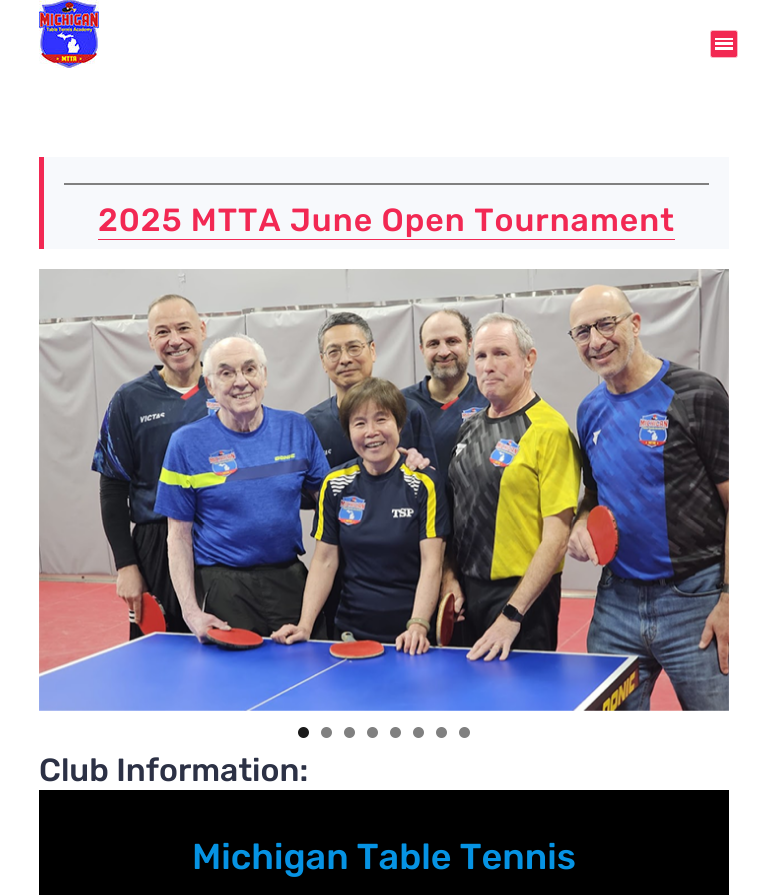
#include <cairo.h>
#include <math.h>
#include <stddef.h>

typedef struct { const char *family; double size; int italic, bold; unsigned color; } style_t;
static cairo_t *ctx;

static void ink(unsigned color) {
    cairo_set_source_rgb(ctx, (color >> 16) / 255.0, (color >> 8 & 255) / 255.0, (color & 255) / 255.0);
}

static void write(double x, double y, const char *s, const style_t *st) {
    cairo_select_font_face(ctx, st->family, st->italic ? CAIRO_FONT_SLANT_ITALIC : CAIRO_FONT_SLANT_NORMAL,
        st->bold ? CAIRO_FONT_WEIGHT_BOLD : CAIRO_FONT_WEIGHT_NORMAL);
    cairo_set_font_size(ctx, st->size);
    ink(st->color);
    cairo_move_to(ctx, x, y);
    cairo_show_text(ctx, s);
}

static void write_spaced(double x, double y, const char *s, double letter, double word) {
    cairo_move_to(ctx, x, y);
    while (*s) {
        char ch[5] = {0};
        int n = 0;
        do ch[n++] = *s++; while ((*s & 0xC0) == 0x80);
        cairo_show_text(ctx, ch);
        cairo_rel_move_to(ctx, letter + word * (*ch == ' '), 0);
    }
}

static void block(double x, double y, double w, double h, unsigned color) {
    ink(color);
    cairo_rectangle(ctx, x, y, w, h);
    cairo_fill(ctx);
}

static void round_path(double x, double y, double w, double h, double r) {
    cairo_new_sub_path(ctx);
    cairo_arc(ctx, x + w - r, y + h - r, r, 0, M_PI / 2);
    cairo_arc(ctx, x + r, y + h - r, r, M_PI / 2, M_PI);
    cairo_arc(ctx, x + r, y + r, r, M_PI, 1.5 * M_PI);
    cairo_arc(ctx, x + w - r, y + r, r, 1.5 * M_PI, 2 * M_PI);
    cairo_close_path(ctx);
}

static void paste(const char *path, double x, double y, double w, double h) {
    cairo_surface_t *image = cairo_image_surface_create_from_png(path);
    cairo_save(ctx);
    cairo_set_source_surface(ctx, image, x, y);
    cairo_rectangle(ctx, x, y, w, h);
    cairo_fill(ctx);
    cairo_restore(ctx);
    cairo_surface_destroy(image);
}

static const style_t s1 = {"Rubik Medium", 32, 0, 0, 0x2c3145};
static const style_t s2 = {"Rubik Medium", 36, 0, 0, 0x0693e3};

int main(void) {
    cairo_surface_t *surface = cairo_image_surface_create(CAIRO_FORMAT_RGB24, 768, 895);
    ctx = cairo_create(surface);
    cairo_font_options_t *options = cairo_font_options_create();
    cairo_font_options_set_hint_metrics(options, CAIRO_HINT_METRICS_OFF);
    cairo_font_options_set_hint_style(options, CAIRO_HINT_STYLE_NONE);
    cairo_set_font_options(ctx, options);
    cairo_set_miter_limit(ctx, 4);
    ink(0xffffff);
    cairo_paint(ctx);
    paste("pic1.png", 39, 0, 60, 68);
    ink(0xf22853);
    round_path(710.4, 30.4, 27.2, 27.2, 2.6);
    cairo_fill_preserve(ctx);
    ink(0xffffff);
    cairo_set_line_width(ctx, 0.8);
    cairo_stroke(ctx);
    cairo_set_source_rgba(ctx, 0.949, 0.157, 0.325, 0.5);
    round_path(710, 30, 28, 28, 3);
    cairo_fill(ctx);
    round_path(710.4, 30.4, 27.2, 27.2, 2.6);
    cairo_set_source_rgba(ctx, 1, 1, 1, 0.5);
    cairo_stroke(ctx);
    block(715, 38, 18, 2, 0xffffff);
    block(715, 42, 18, 3, 0xffffff);
    block(715, 47, 18, 3, 0xffffff);
    block(44, 157, 685, 92, 0xf7f9fc);
    block(39, 157, 5, 92, 0xf22853);
    block(64, 183, 645, 2, 0x808080);
    cairo_select_font_face(ctx, "Rubik Medium", CAIRO_FONT_SLANT_NORMAL, CAIRO_FONT_WEIGHT_NORMAL);
    cairo_set_font_size(ctx, 32);
    ink(0xf22853);
    write_spaced(98, 231, "2025 MTTA June Open Tournament", 1, 0);
    block(98, 239, 577, 1, 0xf22853);
    paste("pic2.png", 39, 269, 690, 442);
    ink(0x1a1a1a);
    cairo_arc(ctx, 303.5, 732.5, 5.5, 0, 2 * M_PI);
    cairo_fill(ctx);
    ink(0x808080);
    cairo_arc(ctx, 326.5, 732.5, 5.5, 0, 2 * M_PI);
    cairo_fill(ctx);
    cairo_arc(ctx, 349.5, 732.5, 5.5, 0, 2 * M_PI);
    cairo_fill(ctx);
    cairo_arc(ctx, 372.5, 732.5, 5.5, 0, 2 * M_PI);
    cairo_fill(ctx);
    cairo_arc(ctx, 395.5, 732.5, 5.5, 0, 2 * M_PI);
    cairo_fill(ctx);
    cairo_arc(ctx, 418.5, 732.5, 5.5, 0, 2 * M_PI);
    cairo_fill(ctx);
    cairo_arc(ctx, 441.5, 732.5, 5.5, 0, 2 * M_PI);
    cairo_fill(ctx);
    cairo_arc(ctx, 464.5, 732.5, 5.5, 0, 2 * M_PI);
    cairo_fill(ctx);
    write(39, 781, "Club Information:", &s1);
    block(39, 790, 690, 105, 0x000000);
    write(192, 869, "Michigan Table Tennis", &s2);
    cairo_surface_write_to_png(surface, "screenshot.png");
    cairo_font_options_destroy(options);
    cairo_destroy(ctx);
    cairo_surface_destroy(surface);
    return 0;
}
